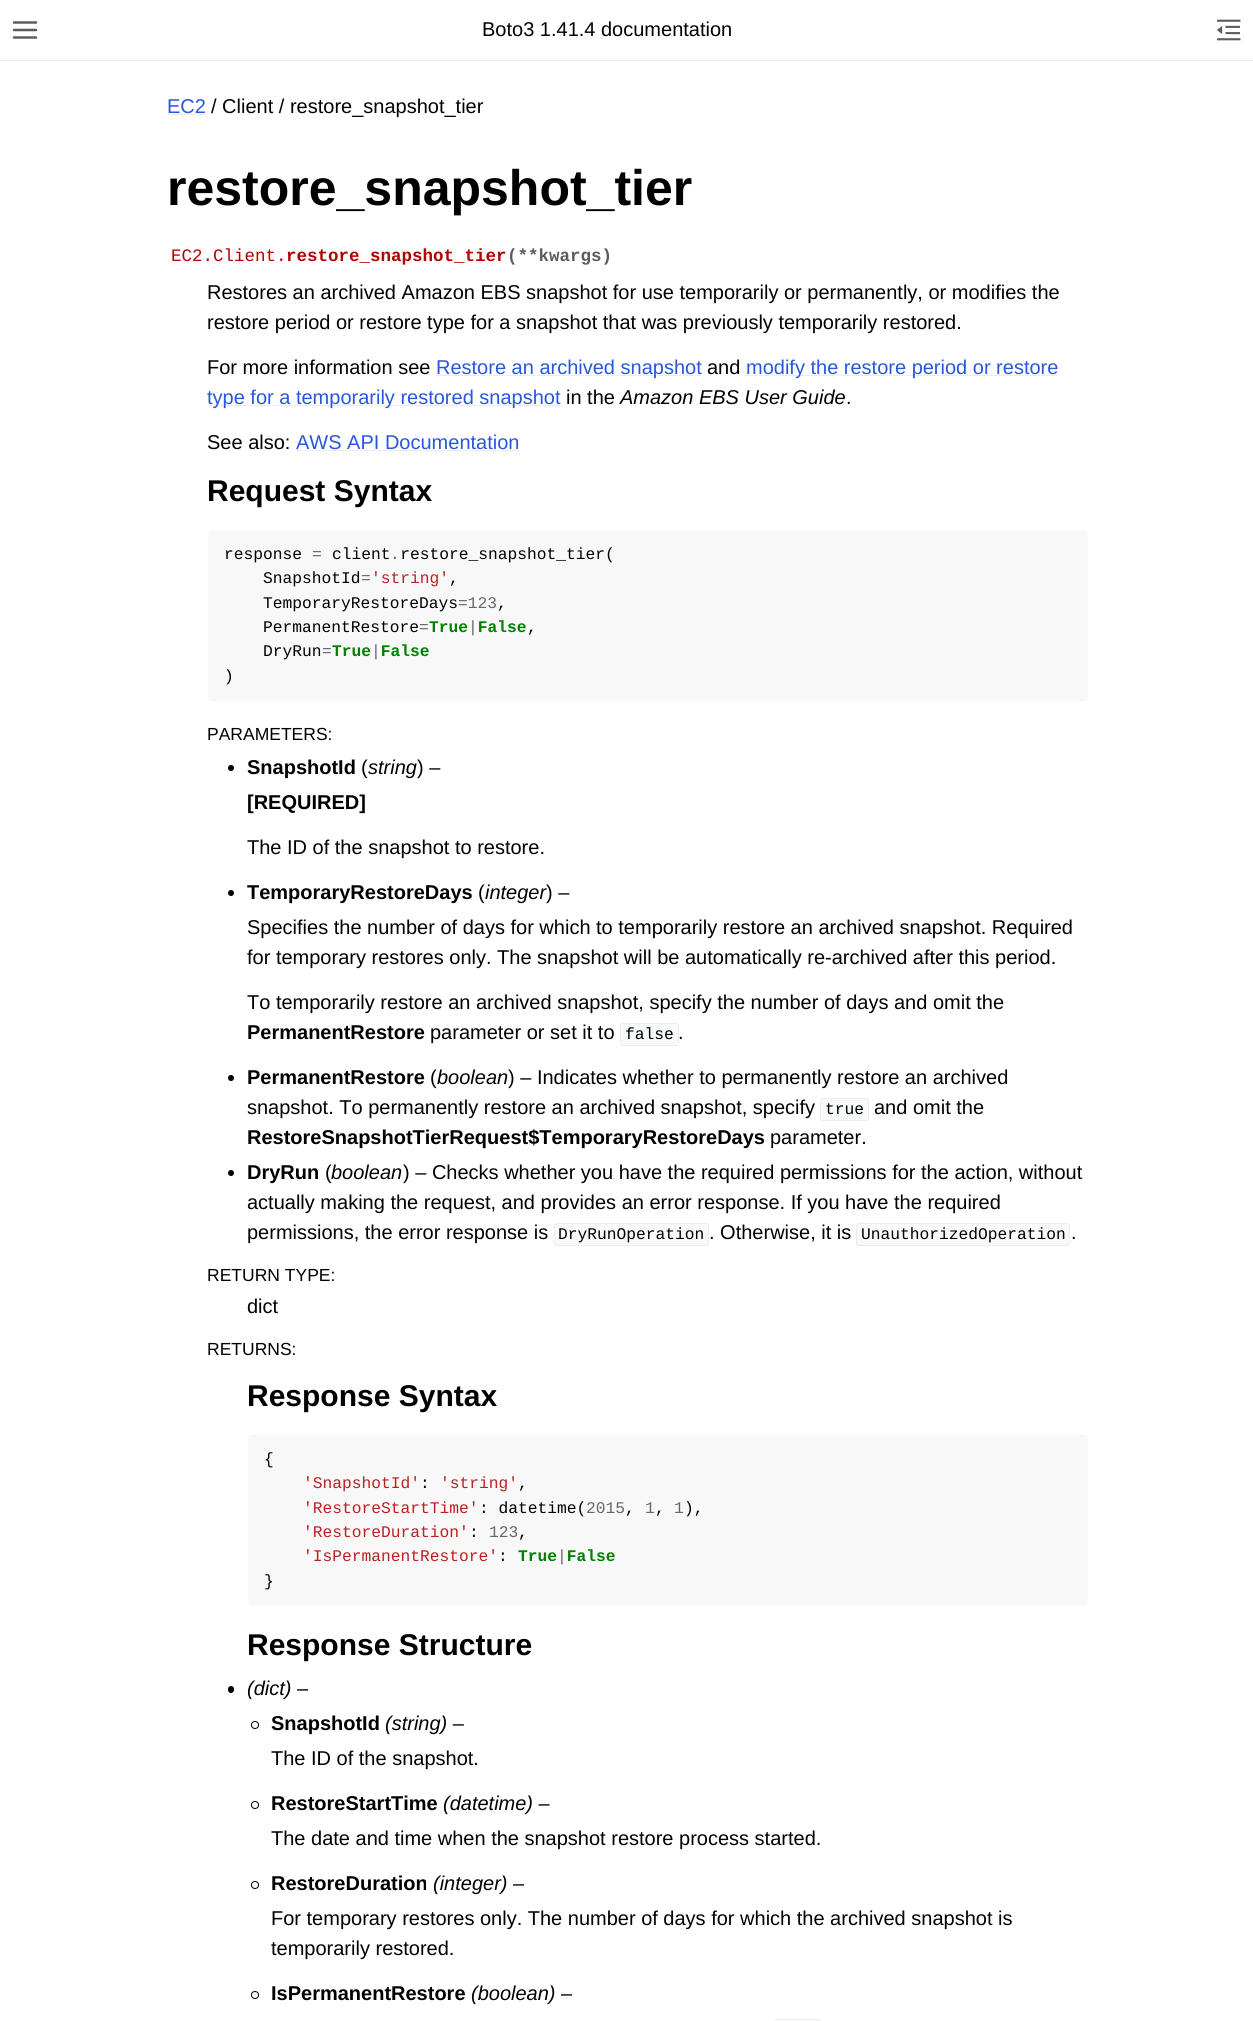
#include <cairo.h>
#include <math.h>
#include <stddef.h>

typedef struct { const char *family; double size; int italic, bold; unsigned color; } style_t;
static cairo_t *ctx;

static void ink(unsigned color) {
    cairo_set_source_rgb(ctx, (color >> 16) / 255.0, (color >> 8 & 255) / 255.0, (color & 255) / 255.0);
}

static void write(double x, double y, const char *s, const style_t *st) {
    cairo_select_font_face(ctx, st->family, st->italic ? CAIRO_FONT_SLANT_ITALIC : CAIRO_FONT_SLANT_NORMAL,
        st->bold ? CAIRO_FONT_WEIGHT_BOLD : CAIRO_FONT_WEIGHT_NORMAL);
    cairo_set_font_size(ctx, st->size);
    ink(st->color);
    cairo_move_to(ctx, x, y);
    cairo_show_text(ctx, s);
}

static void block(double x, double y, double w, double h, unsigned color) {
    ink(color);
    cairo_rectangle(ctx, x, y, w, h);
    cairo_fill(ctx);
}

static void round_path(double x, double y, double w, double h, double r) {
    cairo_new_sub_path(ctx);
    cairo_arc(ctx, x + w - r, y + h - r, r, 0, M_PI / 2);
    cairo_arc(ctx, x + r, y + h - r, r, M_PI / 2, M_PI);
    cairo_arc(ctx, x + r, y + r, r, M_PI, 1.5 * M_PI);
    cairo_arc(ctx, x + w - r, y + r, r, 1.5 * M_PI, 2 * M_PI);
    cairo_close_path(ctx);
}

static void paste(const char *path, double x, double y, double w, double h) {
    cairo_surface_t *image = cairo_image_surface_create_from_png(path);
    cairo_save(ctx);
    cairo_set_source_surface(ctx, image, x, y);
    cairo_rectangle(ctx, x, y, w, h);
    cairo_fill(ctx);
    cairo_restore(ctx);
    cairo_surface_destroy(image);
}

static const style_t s1 = {"Liberation Sans", 20, 0, 0, 0x000000};
static const style_t s2 = {"Liberation Sans", 20, 0, 0, 0x2757dd};
static const style_t s3 = {"Liberation Sans", 50, 0, 1, 0x000000};
static const style_t s4 = {"Liberation Mono", 17.5, 0, 0, 0xb30000};
static const style_t s5 = {"Liberation Mono", 17.5, 0, 1, 0xb30000};
static const style_t s6 = {"Liberation Mono", 17.5, 0, 1, 0x5a5c63};
static const style_t s7 = {"Liberation Sans", 20, 1, 0, 0x000000};
static const style_t s8 = {"Liberation Sans", 30, 0, 1, 0x000000};
static const style_t s9 = {"Liberation Mono", 16.25, 0, 0, 0x000000};
static const style_t s10 = {"Liberation Mono", 16.25, 0, 0, 0x666666};
static const style_t s11 = {"Liberation Mono", 16.25, 0, 0, 0xba2121};
static const style_t s12 = {"Liberation Mono", 16.25, 0, 1, 0x008000};
static const style_t s13 = {"Liberation Sans", 17.5, 0, 0, 0x000000};
static const style_t s14 = {"Liberation Sans", 20, 0, 1, 0x000000};

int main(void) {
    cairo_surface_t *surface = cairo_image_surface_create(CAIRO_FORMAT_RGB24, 1253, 2021);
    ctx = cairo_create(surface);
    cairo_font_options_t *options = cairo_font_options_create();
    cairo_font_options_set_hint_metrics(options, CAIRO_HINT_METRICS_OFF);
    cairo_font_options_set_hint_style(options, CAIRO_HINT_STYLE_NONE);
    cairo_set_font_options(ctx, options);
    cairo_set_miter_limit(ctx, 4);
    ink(0xffffff);
    cairo_paint(ctx);
    block(0, 60, 1253, 1, 0xeeebee);
    cairo_new_path(ctx);
    cairo_move_to(ctx, 14, 30);
    cairo_line_to(ctx, 36, 30);
    cairo_move_to(ctx, 14, 22.5);
    cairo_line_to(ctx, 36, 22.5);
    cairo_move_to(ctx, 14, 37.5);
    cairo_line_to(ctx, 36, 37.5);
    ink(0x5a5c63);
    cairo_set_line_width(ctx, 2.5);
    cairo_set_line_cap(ctx, CAIRO_LINE_CAP_ROUND);
    cairo_set_line_join(ctx, CAIRO_LINE_JOIN_ROUND);
    cairo_stroke(ctx);
    write(482, 36, "Boto3 1.41.4 documentation", &s1);
    paste("pic1.png", 1217, 19, 24, 22);
    write(167, 113, "EC2", &s2);
    block(168, 114, 38, 1, 0xeeebee);
    write(211, 113, "/ Client / restore_snapshot_tier", &s1);
    write(167, 205, "restore_snapshot_tier", &s3);
    write(171, 261, "EC2.Client.", &s4);
    write(286, 261, "restore_snapshot_tier", &s5);
    write(507, 261, "(**kwargs)", &s6);
    write(207, 299, "Restores an archived Amazon EBS snapshot for use temporarily or permanently, or modifies the", &s1);
    write(207, 329, "restore period or restore type for a snapshot that was previously temporarily restored.", &s1);
    write(207, 374, "For more information see", &s1);
    block(436, 375, 265, 1, 0xeeebee);
    write(436, 374, "Restore an archived snapshot", &s2);
    write(707, 374, "and", &s1);
    block(746, 375, 313, 1, 0xeeebee);
    write(746, 374, "modify the restore period or restore", &s2);
    block(208, 405, 352, 1, 0xeeebee);
    write(207, 404, "type for a temporarily restored snapshot", &s2);
    write(566, 404, "in the", &s1);
    write(620, 404, "Amazon EBS User Guide", &s7);
    write(846, 404, ".", &s1);
    write(207, 449, "See also:", &s1);
    write(296, 449, "AWS API Documentation", &s2);
    block(296, 450, 223, 1, 0xeeebee);
    write(207, 501, "Request Syntax", &s8);
    ink(0xf8f8f8);
    round_path(208, 530, 880, 171, 4);
    cairo_fill(ctx);
    write(224, 559, "response", &s9);
    write(312, 559, "=", &s10);
    write(332, 559, "client restore_snapshot_tier(", &s9);
    write(390, 559, ".", &s10);
    write(263, 583, "SnapshotId", &s9);
    write(361, 583, "=", &s10);
    write(371, 583, "'string'", &s11);
    write(449, 583, ",", &s9);
    write(263, 608, "TemporaryRestoreDays", &s9);
    write(458, 608, "=123", &s10);
    write(497, 608, ",", &s9);
    write(429, 632, "True False", &s12);
    write(263, 632, "PermanentRestore", &s9);
    write(419, 632, "=", &s10);
    write(468, 632, "|", &s10);
    write(527, 632, ",", &s9);
    write(332, 656, "True False", &s12);
    write(263, 656, "DryRun", &s9);
    write(322, 656, "=", &s10);
    write(371, 656, "|", &s10);
    write(224, 681, ")", &s9);
    write(207, 740, "PARAMETERS:", &s13);
    cairo_new_path(ctx);
    cairo_arc(ctx, 231, 768, 3, 0, 2 * M_PI);
    cairo_fill(ctx);
    write(247, 774, "SnapshotId", &s14);
    write(361, 774, "(", &s1);
    write(368, 774, "string", &s7);
    write(417, 774, ") –", &s1);
    write(247, 809, "[REQUIRED]", &s14);
    write(247, 854, "The ID of the snapshot to restore.", &s1);
    cairo_new_path(ctx);
    cairo_arc(ctx, 231, 893, 3, 0, 2 * M_PI);
    cairo_fill(ctx);
    write(247, 899, "TemporaryRestoreDays", &s14);
    write(478, 899, "(", &s1);
    write(485, 899, "integer", &s7);
    write(546, 899, ") –", &s1);
    write(247, 934, "Specifies the number of days for which to temporarily restore an archived snapshot. Required", &s1);
    write(247, 964, "for temporary restores only. The snapshot will be automatically re-archived after this period.", &s1);
    write(247, 1009, "To temporarily restore an archived snapshot, specify the number of days and omit the", &s1);
    write(247, 1039, "PermanentRestore", &s14);
    write(430, 1039, "parameter or set it to", &s1);
    ink(0xf8f9fb);
    round_path(620.5, 1023.5, 58, 22, 2.5);
    cairo_fill_preserve(ctx);
    ink(0xeeebee);
    cairo_set_line_width(ctx, 1);
    cairo_set_line_cap(ctx, CAIRO_LINE_CAP_BUTT);
    cairo_set_line_join(ctx, CAIRO_LINE_JOIN_MITER);
    cairo_stroke(ctx);
    write(625, 1039, "false", &s9);
    write(678, 1039, ".", &s1);
    cairo_new_path(ctx);
    cairo_arc(ctx, 231, 1078, 3, 0, 2 * M_PI);
    cairo_fill(ctx);
    write(247, 1084, "PermanentRestore", &s14);
    write(430, 1084, "(", &s1);
    write(437, 1084, "boolean", &s7);
    write(508, 1084, ") – Indicates whether to permanently restore an archived", &s1);
    write(247, 1114, "snapshot. To permanently restore an archived snapshot, specify", &s1);
    ink(0xf8f9fb);
    round_path(820.5, 1098.5, 48, 22, 2.5);
    cairo_fill_preserve(ctx);
    ink(0xeeebee);
    cairo_stroke(ctx);
    write(825, 1114, "true", &s9);
    write(874, 1114, "and omit the", &s1);
    write(247, 1144, "RestoreSnapshotTierRequest$TemporaryRestoreDays", &s14);
    write(770, 1144, "parameter.", &s1);
    cairo_new_path(ctx);
    cairo_arc(ctx, 231, 1173, 3, 0, 2 * M_PI);
    cairo_fill(ctx);
    write(247, 1179, "DryRun", &s14);
    write(325, 1179, "(", &s1);
    write(331, 1179, "boolean", &s7);
    write(403, 1179, ") – Checks whether you have the required permissions for the action, without", &s1);
    write(247, 1209, "actually making the request, and provides an error response. If you have the required", &s1);
    write(247, 1239, "permissions, the error response is", &s1);
    ink(0xf8f9fb);
    round_path(554.5, 1223.5, 154, 22, 2.5);
    cairo_fill_preserve(ctx);
    ink(0xeeebee);
    cairo_stroke(ctx);
    write(558, 1239, "DryRunOperation", &s9);
    write(709, 1239, ". Otherwise, it is", &s1);
    ink(0xf8f9fb);
    round_path(856.5, 1223.5, 213, 22, 2.5);
    cairo_fill_preserve(ctx);
    ink(0xeeebee);
    cairo_stroke(ctx);
    write(861, 1239, "UnauthorizedOperation", &s9);
    write(1071, 1239, ".", &s1);
    write(207, 1281, "RETURN TYPE:", &s13);
    write(247, 1313, "dict", &s1);
    write(207, 1355, "RETURNS:", &s13);
    write(247, 1406, "Response Syntax", &s8);
    ink(0xf8f8f8);
    round_path(248, 1435, 840, 171, 4);
    cairo_fill(ctx);
    write(264, 1464, "{", &s9);
    write(303, 1488, "'SnapshotId'", &s11);
    write(420, 1488, ":", &s9);
    write(440, 1488, "'string'", &s11);
    write(518, 1488, ",", &s9);
    write(303, 1513, "'RestoreStartTime'", &s11);
    write(479, 1513, ": datetime(", &s9);
    write(586, 1513, "2015", &s10);
    write(625, 1513, ",", &s9);
    write(645, 1513, "1", &s10);
    write(655, 1513, ",", &s9);
    write(674, 1513, "1", &s10);
    write(684, 1513, "),", &s9);
    write(303, 1537, "'RestoreDuration'", &s11);
    write(469, 1537, ":", &s9);
    write(489, 1537, "123", &s10);
    write(518, 1537, ",", &s9);
    write(303, 1561, "'IsPermanentRestore'", &s11);
    write(518, 1561, "True False", &s12);
    write(498, 1561, ":", &s9);
    write(557, 1561, "|", &s10);
    write(264, 1586, "}", &s9);
    write(247, 1655, "Response Structure", &s8);
    round_path(228, 1686, 6, 7, 3);
    cairo_fill(ctx);
    write(247, 1695, "(dict) –", &s7);
    cairo_new_path(ctx);
    cairo_arc(ctx, 255, 1725, 3.5, 0, 2 * M_PI);
    cairo_stroke(ctx);
    write(271, 1730, "SnapshotId", &s14);
    write(385, 1730, "(string) –", &s7);
    write(271, 1765, "The ID of the snapshot.", &s1);
    cairo_new_path(ctx);
    cairo_arc(ctx, 255, 1805, 3.5, 0, 2 * M_PI);
    cairo_stroke(ctx);
    write(271, 1810, "RestoreStartTime", &s14);
    write(443, 1810, "(datetime) –", &s7);
    write(271, 1845, "The date and time when the snapshot restore process started.", &s1);
    cairo_new_path(ctx);
    cairo_arc(ctx, 255, 1885, 3.5, 0, 2 * M_PI);
    cairo_stroke(ctx);
    write(271, 1890, "RestoreDuration", &s14);
    write(433, 1890, "(integer) –", &s7);
    write(271, 1925, "For temporary restores only. The number of days for which the archived snapshot is", &s1);
    write(271, 1955, "temporarily restored.", &s1);
    cairo_new_path(ctx);
    cairo_arc(ctx, 255, 1995, 3.5, 0, 2 * M_PI);
    cairo_stroke(ctx);
    write(271, 2000, "IsPermanentRestore", &s14);
    write(471, 2000, "(boolean) –", &s7);
    ink(0xf8f9fb);
    round_path(774.5, 2019.5, 46, 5, 2.5);
    cairo_fill_preserve(ctx);
    ink(0xeeebee);
    cairo_stroke(ctx);
    cairo_surface_write_to_png(surface, "screenshot.png");
    cairo_font_options_destroy(options);
    cairo_destroy(ctx);
    cairo_surface_destroy(surface);
    return 0;
}
